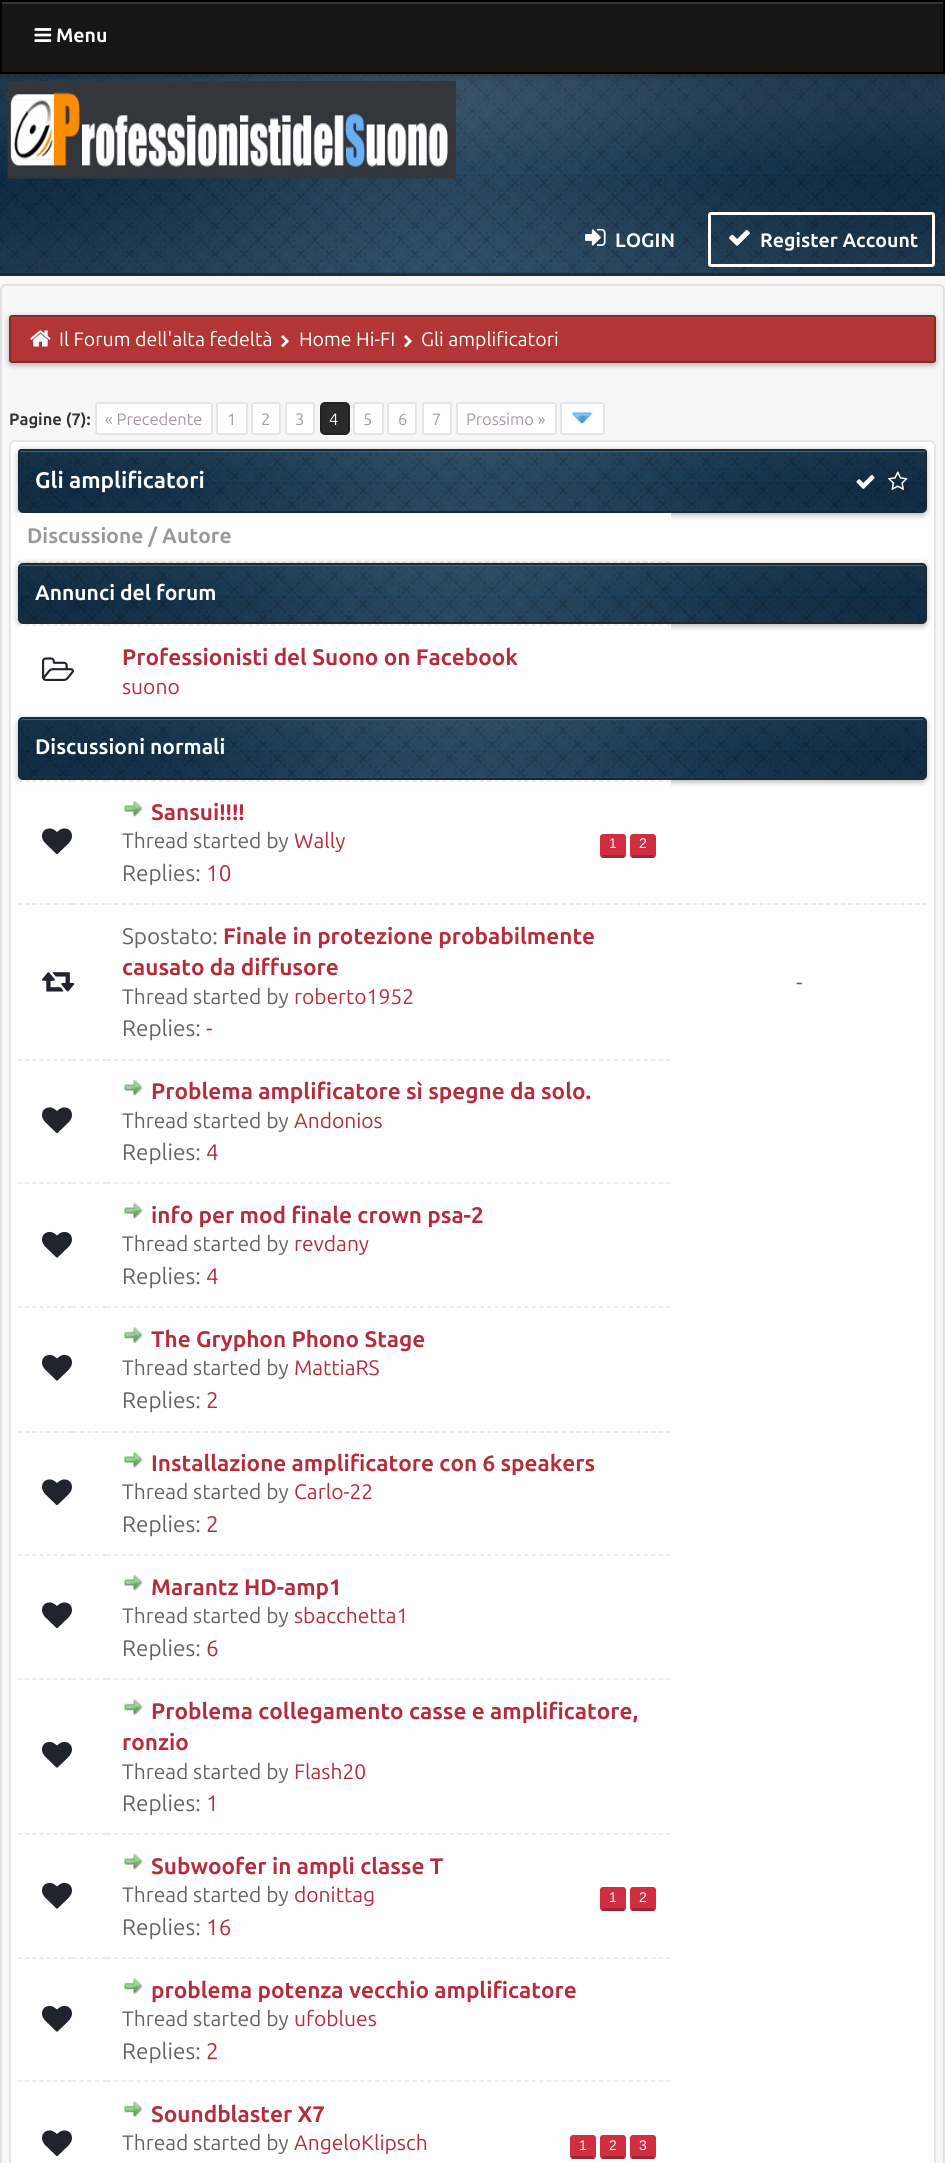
#include <cairo.h>
#include <math.h>
#include <stddef.h>

typedef struct { const char *family; double size; int italic, bold; unsigned color; } style_t;
static cairo_t *ctx;

static void ink(unsigned color) {
    cairo_set_source_rgb(ctx, (color >> 16) / 255.0, (color >> 8 & 255) / 255.0, (color & 255) / 255.0);
}

static void write(double x, double y, const char *s, const style_t *st) {
    cairo_select_font_face(ctx, st->family, st->italic ? CAIRO_FONT_SLANT_ITALIC : CAIRO_FONT_SLANT_NORMAL,
        st->bold ? CAIRO_FONT_WEIGHT_BOLD : CAIRO_FONT_WEIGHT_NORMAL);
    cairo_set_font_size(ctx, st->size);
    ink(st->color);
    cairo_move_to(ctx, x, y);
    cairo_show_text(ctx, s);
}

static void block(double x, double y, double w, double h, unsigned color) {
    ink(color);
    cairo_rectangle(ctx, x, y, w, h);
    cairo_fill(ctx);
}

static void round_path(double x, double y, double w, double h, double r) {
    cairo_new_sub_path(ctx);
    cairo_arc(ctx, x + w - r, y + h - r, r, 0, M_PI / 2);
    cairo_arc(ctx, x + r, y + h - r, r, M_PI / 2, M_PI);
    cairo_arc(ctx, x + r, y + r, r, M_PI, 1.5 * M_PI);
    cairo_arc(ctx, x + w - r, y + r, r, 1.5 * M_PI, 2 * M_PI);
    cairo_close_path(ctx);
}

static void blur_box(double x, double y, double w, double h, double r, double blur, double alpha) {
    cairo_push_group_with_content(ctx, CAIRO_CONTENT_ALPHA);
    cairo_set_operator(ctx, CAIRO_OPERATOR_SOURCE);
    for (int i = 15; i >= -15 && fmin(w, h) + blur * i / 3 > 0; i -= 2) {
        double e = blur * i / 6;
        cairo_set_source_rgba(ctx, 0, 0, 0, alpha * erfc((i - 1) / 8.5) / 2);
        round_path(x - e, y - e, w + 2 * e, h + 2 * e, fmax(0, fmin(r + e + blur * .6, fmin(w, h) / 2 + e)));
        cairo_fill(ctx);
    }
    cairo_pattern_t *soft = cairo_pop_group(ctx);
    cairo_mask(ctx, soft);
    cairo_pattern_destroy(soft);
}

static void paste(const char *path, double x, double y, double w, double h) {
    cairo_surface_t *image = cairo_image_surface_create_from_png(path);
    cairo_save(ctx);
    cairo_set_source_surface(ctx, image, x, y);
    cairo_rectangle(ctx, x, y, w, h);
    cairo_fill(ctx);
    cairo_restore(ctx);
    cairo_surface_destroy(image);
}

static const style_t s1 = {"Ubuntu", 19.5, 0, 1, 0xffffff};
static const style_t s2 = {"Ubuntu", 19.5, 0, 0, 0xffffff};
static const style_t s3 = {"Ubuntu", 16.5, 0, 1, 0x333333};
static const style_t s4 = {"Ubuntu", 16.5, 0, 0, 0xa599a5};
static const style_t s5 = {"Ubuntu", 16.5, 0, 0, 0xffffff};
static const style_t s6 = {"Ubuntu", 22.5, 0, 1, 0xffffff};
static const style_t s7 = {"Ubuntu", 21, 0, 1, 0x999999};
static const style_t s8 = {"Ubuntu", 21, 0, 1, 0xffffff};
static const style_t s9 = {"Ubuntu", 22.5, 0, 1, 0xb52d3d};
static const style_t s10 = {"Ubuntu", 21, 0, 0, 0xb52d3d};
static const style_t s11 = {"Ubuntu", 21, 0, 0, 0x646464};
static const style_t s12 = {"Liberation Sans", 14, 0, 0, 0xffffff};
static const style_t s13 = {"Ubuntu", 22.5, 0, 0, 0x646464};
static const style_t s14 = {"Ubuntu", 22.5, 0, 0, 0xb52d3d};

int main(void) {
    cairo_surface_t *surface = cairo_image_surface_create(CAIRO_FORMAT_RGB24, 945, 2163);
    ctx = cairo_create(surface);
    cairo_font_options_t *options = cairo_font_options_create();
    cairo_font_options_set_hint_metrics(options, CAIRO_HINT_METRICS_OFF);
    cairo_font_options_set_hint_style(options, CAIRO_HINT_STYLE_NONE);
    cairo_set_font_options(ctx, options);
    cairo_set_miter_limit(ctx, 4);
    ink(0xf7f7f7);
    cairo_paint(ctx);
    paste("pic1.png", 0, 74, 945, 202);
    paste("pic3.png", 7, 81, 449, 98);
    ink(0x000000);
    blur_box(0, 2, 945, 73, 0, 3, 0.3);
    block(2, 4, 941, 68, 0x161617);
    block(2, 2, 942, 2, 0x343435);
    cairo_rectangle(ctx, 1, 1, 943, 72);
    ink(0x000000);
    cairo_stroke(ctx);
    paste("pic2.png", 34, 28, 18, 14);
    write(56, 42, "Menu", &s1);
    paste("pic4.png", 585, 228, 21, 18);
    write(615, 247, "LOGIN", &s1);
    round_path(709.5, 213.5, 224, 52, 1.5);
    cairo_set_line_width(ctx, 3);
    cairo_stroke(ctx);
    paste("pic5.png", 729, 229, 21, 17);
    write(760, 247, "Register Account", &s1);
    round_path(1, 285, 943, 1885, 5);
    ink(0xe1e1e1);
    cairo_set_line_width(ctx, 2);
    cairo_stroke(ctx);
    ink(0x000000);
    blur_box(9, 317, 927, 48, 3, 3, 0.3);
    ink(0xb23636);
    round_path(11, 317, 924, 45, 1.5);
    cairo_fill(ctx);
    ink(0xcc3d3d);
    cairo_new_path(ctx);
    cairo_move_to(ctx, 12, 318);
    cairo_line_to(ctx, 934, 318);
    cairo_line_to(ctx, 934, 362);
    cairo_line_to(ctx, 935, 361);
    cairo_line_to(ctx, 935, 318);
    cairo_line_to(ctx, 934, 317);
    cairo_line_to(ctx, 12, 317);
    cairo_line_to(ctx, 11, 318);
    cairo_line_to(ctx, 11, 319);
    cairo_close_path(ctx);
    cairo_fill(ctx);
    round_path(10, 316, 925, 46, 2);
    ink(0x882929);
    cairo_stroke(ctx);
    paste("pic6.png", 30, 330, 21, 17);
    write(59, 346, "Il Forum dell'alta fedeltà", &s2);
    paste("pic7.png", 281, 335, 8, 13);
    write(299, 346, "Home Hi-FI", &s2);
    paste("pic7.png", 404, 335, 8, 13);
    write(421, 346, "Gli amplificatori", &s2);
    write(9, 425, "Pagine (7):", &s3);
    ink(0xffffff);
    round_path(96, 403, 116, 31, 2);
    cairo_fill_preserve(ctx);
    ink(0xe5e5e5);
    cairo_stroke(ctx);
    write(105, 425, "« Precedente", &s4);
    ink(0xffffff);
    round_path(457, 403, 99, 31, 2);
    cairo_fill_preserve(ctx);
    ink(0xe5e5e5);
    cairo_stroke(ctx);
    write(466, 425, "Prossimo »", &s4);
    ink(0xffffff);
    round_path(561, 403, 43, 31, 2);
    cairo_fill_preserve(ctx);
    ink(0xe5e5e5);
    cairo_stroke(ctx);
    ink(0xffffff);
    round_path(217, 403, 30, 31, 2);
    cairo_fill_preserve(ctx);
    ink(0xe5e5e5);
    cairo_stroke(ctx);
    write(227, 425, "1", &s4);
    ink(0xffffff);
    round_path(252, 403, 28, 31, 2);
    cairo_fill_preserve(ctx);
    ink(0xe5e5e5);
    cairo_stroke(ctx);
    write(261, 425, "2", &s4);
    ink(0xffffff);
    round_path(286, 403, 28, 31, 2);
    cairo_fill_preserve(ctx);
    ink(0xe5e5e5);
    cairo_stroke(ctx);
    write(295, 425, "3", &s4);
    ink(0x2a2a2a);
    round_path(321, 403, 28, 31, 4);
    cairo_fill_preserve(ctx);
    ink(0x222222);
    cairo_stroke(ctx);
    write(329, 425, "4", &s5);
    round_path(354, 403, 29, 31, 2);
    cairo_fill_preserve(ctx);
    ink(0xe5e5e5);
    cairo_stroke(ctx);
    write(363, 425, "5", &s4);
    ink(0xffffff);
    round_path(388, 403, 28, 31, 2);
    cairo_fill_preserve(ctx);
    ink(0xe5e5e5);
    cairo_stroke(ctx);
    write(398, 425, "6", &s4);
    ink(0xffffff);
    round_path(423, 403, 28, 31, 2);
    cairo_fill_preserve(ctx);
    ink(0xe5e5e5);
    cairo_stroke(ctx);
    write(432, 425, "7", &s4);
    paste("pic8.png", 571, 412, 22, 12);
    ink(0xffffff);
    round_path(10, 441, 925, 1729, 5);
    cairo_fill_preserve(ctx);
    ink(0xe4e6e9);
    cairo_stroke(ctx);
    ink(0x000000);
    blur_box(18, 450, 909, 65, 5, 3, 0.3);
    paste("pic9.png", 20, 451, 905, 60);
    ink(0x3d6485);
    cairo_new_path(ctx);
    cairo_move_to(ctx, 21, 452);
    cairo_line_to(ctx, 924, 452);
    cairo_curve_to(ctx, 925, 452, 926, 452, 926, 453);
    cairo_curve_to(ctx, 926, 452, 926, 450, 924, 450);
    cairo_line_to(ctx, 22, 450);
    cairo_curve_to(ctx, 20, 450, 20, 452, 20, 453);
    cairo_curve_to(ctx, 20, 452, 20, 452, 21, 452);
    cairo_close_path(ctx);
    cairo_fill(ctx);
    cairo_new_path(ctx);
    cairo_move_to(ctx, 21, 450);
    cairo_line_to(ctx, 924, 450);
    cairo_curve_to(ctx, 925, 450, 926, 451, 926, 452);
    cairo_line_to(ctx, 926, 508);
    cairo_curve_to(ctx, 926, 510, 924, 512, 922, 512);
    cairo_line_to(ctx, 23, 512);
    cairo_curve_to(ctx, 21, 512, 19, 510, 19, 508);
    cairo_line_to(ctx, 19, 452);
    cairo_curve_to(ctx, 19, 451, 20, 450, 21, 450);
    cairo_close_path(ctx);
    ink(0x1a2936);
    cairo_stroke(ctx);
    write(35, 488, "Gli amplificatori", &s6);
    paste("pic10.png", 856, 474, 19, 15);
    paste("pic11.png", 888, 471, 20, 19);
    block(18, 513, 653, 7, 0xffffff);
    cairo_new_path(ctx);
    cairo_move_to(ctx, 18, 562);
    cairo_line_to(ctx, 670.5, 562);
    ink(0xe7e6e6);
    cairo_set_line_width(ctx, 1.5);
    cairo_set_dash(ctx, (double[]){4.5, 3.03}, 2, 0);
    cairo_stroke(ctx);
    write(27, 543, "Discussione / Autore", &s7);
    ink(0x000000);
    blur_box(18, 564, 909, 62, 5, 3, 0.3);
    paste("pic12.png", 20, 565, 905, 57);
    ink(0x3d6485);
    cairo_new_path(ctx);
    cairo_move_to(ctx, 22, 566);
    cairo_line_to(ctx, 922, 566);
    cairo_curve_to(ctx, 924, 566, 926, 567, 926, 568);
    cairo_curve_to(ctx, 926, 566, 925, 564, 923, 564);
    cairo_line_to(ctx, 23, 564);
    cairo_curve_to(ctx, 21, 564, 20, 566, 20, 568);
    cairo_curve_to(ctx, 20, 567, 21, 566, 22, 566);
    cairo_close_path(ctx);
    cairo_fill(ctx);
    round_path(19, 564, 907, 59, 4);
    ink(0x1a2936);
    cairo_set_line_width(ctx, 2);
    cairo_set_dash(ctx, NULL, 0, 0);
    cairo_stroke(ctx);
    write(35, 600, "Annunci del forum", &s8);
    block(18, 624, 653, 7, 0xffffff);
    cairo_new_path(ctx);
    cairo_move_to(ctx, 18, 625);
    cairo_line_to(ctx, 72, 625);
    ink(0xe7e6e6);
    cairo_set_line_width(ctx, 1.5);
    cairo_set_dash(ctx, (double[]){4.5, 2.56}, 2, 0);
    cairo_stroke(ctx);
    paste("pic13.png", 42, 657, 32, 24);
    cairo_new_path(ctx);
    cairo_move_to(ctx, 72, 625);
    cairo_line_to(ctx, 106.5, 625);
    cairo_set_dash(ctx, (double[]){4.5, 3}, 2, 0);
    cairo_stroke(ctx);
    cairo_new_path(ctx);
    cairo_move_to(ctx, 106.5, 625);
    cairo_line_to(ctx, 670.5, 625);
    cairo_set_dash(ctx, (double[]){4.5, 2.96}, 2, 0);
    cairo_stroke(ctx);
    write(122, 665, "Professionisti del Suono on Facebook", &s9);
    write(122, 694, "suono", &s10);
    ink(0x000000);
    blur_box(18, 719, 909, 63, 5, 3, 0.3);
    paste("pic14.png", 20, 719, 905, 59);
    ink(0x3d6485);
    cairo_new_path(ctx);
    cairo_move_to(ctx, 22, 720);
    cairo_line_to(ctx, 922, 720);
    cairo_curve_to(ctx, 924, 720, 926, 721, 926, 723);
    cairo_curve_to(ctx, 926, 721, 925, 719, 923, 719);
    cairo_line_to(ctx, 23, 719);
    cairo_curve_to(ctx, 21, 719, 20, 721, 20, 723);
    cairo_curve_to(ctx, 20, 721, 21, 720, 22, 720);
    cairo_close_path(ctx);
    cairo_fill(ctx);
    round_path(19, 718, 907, 61, 4);
    ink(0x1a2936);
    cairo_set_line_width(ctx, 2);
    cairo_set_dash(ctx, NULL, 0, 0);
    cairo_stroke(ctx);
    write(35, 754, "Discussioni normali", &s8);
    block(18, 780, 653, 7, 0xffffff);
    cairo_new_path(ctx);
    cairo_move_to(ctx, 18, 781);
    cairo_line_to(ctx, 72, 781);
    ink(0xe7e6e6);
    cairo_set_line_width(ctx, 1.5);
    cairo_set_dash(ctx, (double[]){4.5, 2.56}, 2, 0);
    cairo_stroke(ctx);
    paste("pic15.png", 42, 828, 30, 27);
    cairo_new_path(ctx);
    cairo_move_to(ctx, 72, 781);
    cairo_line_to(ctx, 106.5, 781);
    cairo_set_dash(ctx, (double[]){4.5, 3}, 2, 0);
    cairo_stroke(ctx);
    cairo_new_path(ctx);
    cairo_move_to(ctx, 106.5, 781);
    cairo_line_to(ctx, 670.5, 781);
    cairo_set_dash(ctx, (double[]){4.5, 2.96}, 2, 0);
    cairo_stroke(ctx);
    paste("pic16.png", 124, 800, 19, 17);
    write(151, 820, "Sansui!!!!", &s9);
    write(122, 848, "Thread started by", &s11);
    write(294, 848, "Wally", &s10);
    ink(0xd32d41);
    round_path(600, 834, 26, 24, 3);
    cairo_fill(ctx);
    write(609, 848, "1", &s12);
    block(602, 855, 22, 3, 0x9e2635);
    ink(0xd32d41);
    round_path(630, 834, 26, 24, 3);
    cairo_fill(ctx);
    write(639, 848, "2", &s12);
    block(632, 855, 22, 3, 0x9e2635);
    write(122, 881, "Replies:", &s13);
    write(206, 881, "10", &s14);
    cairo_new_path(ctx);
    cairo_move_to(ctx, 18, 904);
    cairo_line_to(ctx, 72, 904);
    ink(0xe7e6e6);
    cairo_set_dash(ctx, (double[]){4.5, 2.56}, 2, 0);
    cairo_stroke(ctx);
    paste("pic17.png", 42, 972, 33, 20);
    cairo_new_path(ctx);
    cairo_move_to(ctx, 72, 904);
    cairo_line_to(ctx, 106.5, 904);
    cairo_set_dash(ctx, (double[]){4.5, 3}, 2, 0);
    cairo_stroke(ctx);
    cairo_new_path(ctx);
    cairo_move_to(ctx, 106.5, 904);
    cairo_line_to(ctx, 670.5, 904);
    cairo_set_dash(ctx, (double[]){4.5, 2.96}, 2, 0);
    cairo_stroke(ctx);
    write(122, 944, "Spostato:", &s13);
    write(223, 944, "Finale in protezione probabilmente", &s9);
    write(122, 975, "causato da diffusore", &s9);
    write(122, 1004, "Thread started by", &s11);
    write(294, 1004, "roberto1952", &s10);
    write(122, 1036, "Replies:", &s13);
    write(206, 1036, "-", &s14);
    cairo_new_path(ctx);
    cairo_move_to(ctx, 670.5, 904);
    cairo_line_to(ctx, 927, 904);
    ink(0xe7e6e6);
    cairo_set_dash(ctx, (double[]){4.5, 2.91}, 2, 0);
    cairo_stroke(ctx);
    write(796, 990, "-", &s13);
    cairo_new_path(ctx);
    cairo_move_to(ctx, 18, 1060);
    cairo_line_to(ctx, 72, 1060);
    ink(0xe7e6e6);
    cairo_set_dash(ctx, (double[]){4.5, 2.56}, 2, 0);
    cairo_stroke(ctx);
    paste("pic15.png", 42, 1107, 30, 27);
    cairo_new_path(ctx);
    cairo_move_to(ctx, 72, 1060);
    cairo_line_to(ctx, 106.5, 1060);
    cairo_set_dash(ctx, (double[]){4.5, 3}, 2, 0);
    cairo_stroke(ctx);
    cairo_new_path(ctx);
    cairo_move_to(ctx, 106.5, 1060);
    cairo_line_to(ctx, 670.5, 1060);
    cairo_set_dash(ctx, (double[]){4.5, 2.96}, 2, 0);
    cairo_stroke(ctx);
    paste("pic16.png", 124, 1079, 19, 17);
    write(151, 1099, "Problema amplificatore sì spegne da solo.", &s9);
    write(122, 1128, "Thread started by", &s11);
    write(294, 1128, "Andonios", &s10);
    write(122, 1160, "Replies:", &s13);
    write(206, 1160, "4", &s14);
    cairo_new_path(ctx);
    cairo_move_to(ctx, 18, 1183);
    cairo_line_to(ctx, 72, 1183);
    ink(0xe7e6e6);
    cairo_set_dash(ctx, (double[]){4.5, 2.56}, 2, 0);
    cairo_stroke(ctx);
    paste("pic18.png", 42, 1231, 30, 27);
    cairo_new_path(ctx);
    cairo_move_to(ctx, 72, 1183);
    cairo_line_to(ctx, 106.5, 1183);
    cairo_set_dash(ctx, (double[]){4.5, 3}, 2, 0);
    cairo_stroke(ctx);
    cairo_new_path(ctx);
    cairo_move_to(ctx, 106.5, 1183);
    cairo_line_to(ctx, 670.5, 1183);
    cairo_set_dash(ctx, (double[]){4.5, 2.96}, 2, 0);
    cairo_stroke(ctx);
    paste("pic16.png", 124, 1202, 19, 17);
    write(151, 1223, "info per mod finale crown psa-2", &s9);
    write(122, 1251, "Thread started by", &s11);
    write(294, 1251, "revdany", &s10);
    write(122, 1284, "Replies:", &s13);
    write(206, 1284, "4", &s14);
    cairo_new_path(ctx);
    cairo_move_to(ctx, 18, 1307);
    cairo_line_to(ctx, 72, 1307);
    ink(0xe7e6e6);
    cairo_set_dash(ctx, (double[]){4.5, 2.56}, 2, 0);
    cairo_stroke(ctx);
    paste("pic18.png", 42, 1354, 30, 27);
    cairo_new_path(ctx);
    cairo_move_to(ctx, 72, 1307);
    cairo_line_to(ctx, 106.5, 1307);
    cairo_set_dash(ctx, (double[]){4.5, 3}, 2, 0);
    cairo_stroke(ctx);
    cairo_new_path(ctx);
    cairo_move_to(ctx, 106.5, 1307);
    cairo_line_to(ctx, 670.5, 1307);
    cairo_set_dash(ctx, (double[]){4.5, 2.96}, 2, 0);
    cairo_stroke(ctx);
    paste("pic19.png", 124, 1327, 19, 16);
    write(151, 1347, "The Gryphon Phono Stage", &s9);
    write(122, 1375, "Thread started by", &s11);
    write(294, 1375, "MattiaRS", &s10);
    write(122, 1408, "Replies:", &s13);
    write(206, 1408, "2", &s14);
    cairo_new_path(ctx);
    cairo_move_to(ctx, 18, 1432);
    cairo_line_to(ctx, 72, 1432);
    ink(0xe7e6e6);
    cairo_set_dash(ctx, (double[]){4.5, 2.56}, 2, 0);
    cairo_stroke(ctx);
    paste("pic15.png", 42, 1479, 30, 27);
    cairo_new_path(ctx);
    cairo_move_to(ctx, 72, 1432);
    cairo_line_to(ctx, 106.5, 1432);
    cairo_set_dash(ctx, (double[]){4.5, 3}, 2, 0);
    cairo_stroke(ctx);
    cairo_new_path(ctx);
    cairo_move_to(ctx, 106.5, 1432);
    cairo_line_to(ctx, 670.5, 1432);
    cairo_set_dash(ctx, (double[]){4.5, 2.96}, 2, 0);
    cairo_stroke(ctx);
    paste("pic16.png", 124, 1451, 19, 17);
    write(151, 1471, "Installazione amplificatore con 6 speakers", &s9);
    write(122, 1499, "Thread started by", &s11);
    write(294, 1499, "Carlo-22", &s10);
    write(122, 1532, "Replies:", &s13);
    write(206, 1532, "2", &s14);
    cairo_new_path(ctx);
    cairo_move_to(ctx, 18, 1555);
    cairo_line_to(ctx, 72, 1555);
    ink(0xe7e6e6);
    cairo_set_dash(ctx, (double[]){4.5, 2.56}, 2, 0);
    cairo_stroke(ctx);
    paste("pic15.png", 42, 1602, 30, 27);
    cairo_new_path(ctx);
    cairo_move_to(ctx, 72, 1555);
    cairo_line_to(ctx, 106.5, 1555);
    cairo_set_dash(ctx, (double[]){4.5, 3}, 2, 0);
    cairo_stroke(ctx);
    cairo_new_path(ctx);
    cairo_move_to(ctx, 106.5, 1555);
    cairo_line_to(ctx, 670.5, 1555);
    cairo_set_dash(ctx, (double[]){4.5, 2.96}, 2, 0);
    cairo_stroke(ctx);
    paste("pic16.png", 124, 1574, 19, 17);
    write(151, 1595, "Marantz HD-amp1", &s9);
    write(122, 1623, "Thread started by", &s11);
    write(294, 1623, "sbacchetta1", &s10);
    write(122, 1656, "Replies:", &s13);
    write(206, 1656, "6", &s14);
    cairo_new_path(ctx);
    cairo_move_to(ctx, 18, 1679);
    cairo_line_to(ctx, 72, 1679);
    ink(0xe7e6e6);
    cairo_set_dash(ctx, (double[]){4.5, 2.56}, 2, 0);
    cairo_stroke(ctx);
    paste("pic18.png", 42, 1741, 30, 27);
    cairo_new_path(ctx);
    cairo_move_to(ctx, 72, 1679);
    cairo_line_to(ctx, 106.5, 1679);
    cairo_set_dash(ctx, (double[]){4.5, 3}, 2, 0);
    cairo_stroke(ctx);
    cairo_new_path(ctx);
    cairo_move_to(ctx, 106.5, 1679);
    cairo_line_to(ctx, 670.5, 1679);
    cairo_set_dash(ctx, (double[]){4.5, 2.96}, 2, 0);
    cairo_stroke(ctx);
    paste("pic19.png", 124, 1699, 19, 16);
    write(151, 1719, "Problema collegamento casse e amplificatore,", &s9);
    write(122, 1750, "ronzio", &s9);
    write(122, 1779, "Thread started by", &s11);
    write(294, 1779, "Flash20", &s10);
    write(122, 1811, "Replies:", &s13);
    write(206, 1811, "1", &s14);
    cairo_new_path(ctx);
    cairo_move_to(ctx, 18, 1834);
    cairo_line_to(ctx, 72, 1834);
    ink(0xe7e6e6);
    cairo_set_dash(ctx, (double[]){4.5, 2.56}, 2, 0);
    cairo_stroke(ctx);
    paste("pic18.png", 42, 1882, 30, 27);
    cairo_new_path(ctx);
    cairo_move_to(ctx, 72, 1834);
    cairo_line_to(ctx, 106.5, 1834);
    cairo_set_dash(ctx, (double[]){4.5, 3}, 2, 0);
    cairo_stroke(ctx);
    cairo_new_path(ctx);
    cairo_move_to(ctx, 106.5, 1834);
    cairo_line_to(ctx, 670.5, 1834);
    cairo_set_dash(ctx, (double[]){4.5, 2.96}, 2, 0);
    cairo_stroke(ctx);
    paste("pic16.png", 124, 1853, 19, 17);
    write(151, 1874, "Subwoofer in ampli classe T", &s9);
    write(122, 1902, "Thread started by", &s11);
    write(294, 1902, "donittag", &s10);
    ink(0xd32d41);
    round_path(600, 1887, 26, 24, 3);
    cairo_fill(ctx);
    write(609, 1902, "1", &s12);
    block(602, 1908, 22, 3, 0x9e2635);
    ink(0xd32d41);
    round_path(630, 1887, 26, 24, 3);
    cairo_fill(ctx);
    write(639, 1902, "2", &s12);
    block(632, 1908, 22, 3, 0x9e2635);
    write(122, 1935, "Replies:", &s13);
    write(206, 1935, "16", &s14);
    cairo_new_path(ctx);
    cairo_move_to(ctx, 18, 1958);
    cairo_line_to(ctx, 72, 1958);
    ink(0xe7e6e6);
    cairo_set_dash(ctx, (double[]){4.5, 2.56}, 2, 0);
    cairo_stroke(ctx);
    paste("pic18.png", 42, 2005, 30, 27);
    cairo_new_path(ctx);
    cairo_move_to(ctx, 72, 1958);
    cairo_line_to(ctx, 106.5, 1958);
    cairo_set_dash(ctx, (double[]){4.5, 3}, 2, 0);
    cairo_stroke(ctx);
    cairo_new_path(ctx);
    cairo_move_to(ctx, 106.5, 1958);
    cairo_line_to(ctx, 670.5, 1958);
    cairo_set_dash(ctx, (double[]){4.5, 2.96}, 2, 0);
    cairo_stroke(ctx);
    paste("pic19.png", 124, 1978, 19, 16);
    write(151, 1998, "problema potenza vecchio amplificatore", &s9);
    write(122, 2026, "Thread started by", &s11);
    write(294, 2026, "ufoblues", &s10);
    write(122, 2059, "Replies:", &s13);
    write(206, 2059, "2", &s14);
    cairo_new_path(ctx);
    cairo_move_to(ctx, 18, 2081);
    cairo_line_to(ctx, 72, 2081);
    ink(0xe7e6e6);
    cairo_set_dash(ctx, (double[]){4.5, 2.56}, 2, 0);
    cairo_stroke(ctx);
    paste("pic15.png", 42, 2130, 30, 27);
    cairo_new_path(ctx);
    cairo_move_to(ctx, 72, 2081);
    cairo_line_to(ctx, 106.5, 2081);
    cairo_set_dash(ctx, (double[]){4.5, 3}, 2, 0);
    cairo_stroke(ctx);
    cairo_new_path(ctx);
    cairo_move_to(ctx, 106.5, 2081);
    cairo_line_to(ctx, 670.5, 2081);
    cairo_set_dash(ctx, (double[]){4.5, 2.96}, 2, 0);
    cairo_stroke(ctx);
    paste("pic19.png", 124, 2101, 19, 16);
    write(151, 2122, "Soundblaster X7", &s9);
    write(122, 2150, "Thread started by", &s11);
    write(294, 2150, "AngeloKlipsch", &s10);
    ink(0xd32d41);
    round_path(570, 2135, 26, 24, 3);
    cairo_fill(ctx);
    write(579, 2150, "1", &s12);
    block(572, 2156, 22, 3, 0x9e2635);
    ink(0xd32d41);
    round_path(600, 2135, 26, 24, 3);
    cairo_fill(ctx);
    write(609, 2150, "2", &s12);
    block(602, 2156, 22, 3, 0x9e2635);
    ink(0xd32d41);
    round_path(630, 2135, 26, 24, 3);
    cairo_fill(ctx);
    write(639, 2150, "3", &s12);
    block(632, 2156, 22, 3, 0x9e2635);
    cairo_surface_write_to_png(surface, "screenshot.png");
    cairo_font_options_destroy(options);
    cairo_destroy(ctx);
    cairo_surface_destroy(surface);
    return 0;
}
